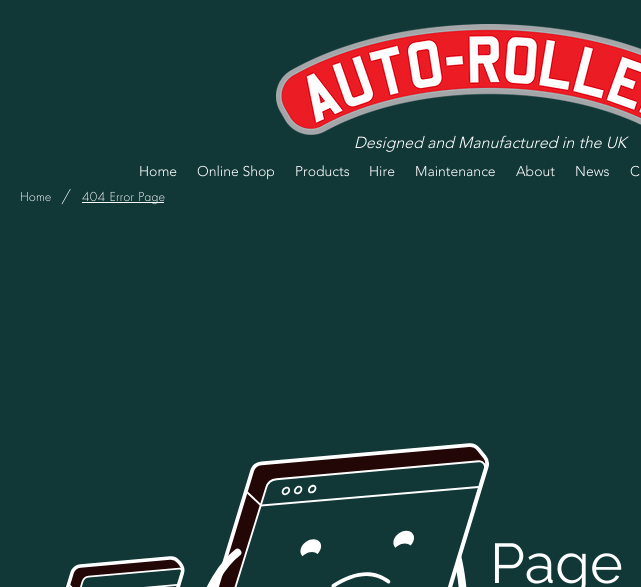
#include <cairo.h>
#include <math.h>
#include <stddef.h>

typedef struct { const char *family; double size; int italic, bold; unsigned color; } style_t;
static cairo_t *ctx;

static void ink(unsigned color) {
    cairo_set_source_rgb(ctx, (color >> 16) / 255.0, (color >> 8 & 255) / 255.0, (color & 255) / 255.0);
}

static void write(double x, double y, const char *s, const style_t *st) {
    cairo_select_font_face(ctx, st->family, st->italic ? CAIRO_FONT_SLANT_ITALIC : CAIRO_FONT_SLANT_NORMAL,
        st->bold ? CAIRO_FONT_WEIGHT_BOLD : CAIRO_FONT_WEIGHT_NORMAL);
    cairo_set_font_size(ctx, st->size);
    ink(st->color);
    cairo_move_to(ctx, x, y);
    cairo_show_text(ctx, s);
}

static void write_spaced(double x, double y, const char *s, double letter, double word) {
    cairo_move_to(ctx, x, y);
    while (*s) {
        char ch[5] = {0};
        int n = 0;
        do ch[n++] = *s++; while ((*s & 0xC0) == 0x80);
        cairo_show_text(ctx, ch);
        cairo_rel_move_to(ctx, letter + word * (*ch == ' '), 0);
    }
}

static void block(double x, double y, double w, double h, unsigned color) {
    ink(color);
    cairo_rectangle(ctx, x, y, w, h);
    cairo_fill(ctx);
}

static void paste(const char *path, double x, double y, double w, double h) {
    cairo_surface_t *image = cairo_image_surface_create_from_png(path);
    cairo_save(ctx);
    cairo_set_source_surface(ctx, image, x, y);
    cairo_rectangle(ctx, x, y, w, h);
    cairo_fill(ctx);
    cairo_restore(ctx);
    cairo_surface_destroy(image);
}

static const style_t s1 = {"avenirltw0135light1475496 Light", 16, 1, 0, 0xffffff};
static const style_t s2 = {"avenirltw0135light1475496 Light", 14, 0, 0, 0xffffff};
static const style_t s3 = {"futura Light", 16, 0, 0, 0xffffff};
static const style_t s4 = {"Raleway", 56, 0, 0, 0xffffff};

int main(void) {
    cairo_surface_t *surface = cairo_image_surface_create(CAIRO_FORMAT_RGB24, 641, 587);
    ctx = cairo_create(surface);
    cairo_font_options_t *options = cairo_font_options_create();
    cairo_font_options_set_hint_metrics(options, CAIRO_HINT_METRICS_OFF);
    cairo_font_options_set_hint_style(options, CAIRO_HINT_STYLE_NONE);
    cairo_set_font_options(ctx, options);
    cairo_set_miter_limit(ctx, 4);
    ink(0x113737);
    cairo_paint(ctx);
    paste("pic1.png", 276, 24, 365, 111);
    write(354, 148, "Designed and Manufactured in the UK", &s1);
    write(139, 176, "Home", &s2);
    write(197, 176, "Online Shop", &s2);
    write(295, 176, "Products", &s2);
    write(369, 176, "Hire", &s2);
    write(415, 176, "Maintenance", &s2);
    write(516, 176, "About", &s2);
    write(575, 176, "News", &s2);
    write(630, 176, "C", &s2);
    cairo_select_font_face(ctx, "futura Light", CAIRO_FONT_SLANT_NORMAL, CAIRO_FONT_WEIGHT_NORMAL);
    cairo_set_font_size(ctx, 12);
    write_spaced(20, 201, "Home", 0.4, 0);
    write(61, 202, "/", &s3);
    block(82, 202, 82, 1, 0xffffff);
    cairo_set_font_size(ctx, 12);
    write_spaced(82, 201, "404 Error Page", 0.4, 0);
    paste("pic2.png", 66, 443, 423, 144);
    write(490, 583, "Page", &s4);
    cairo_surface_write_to_png(surface, "screenshot.png");
    cairo_font_options_destroy(options);
    cairo_destroy(ctx);
    cairo_surface_destroy(surface);
    return 0;
}
